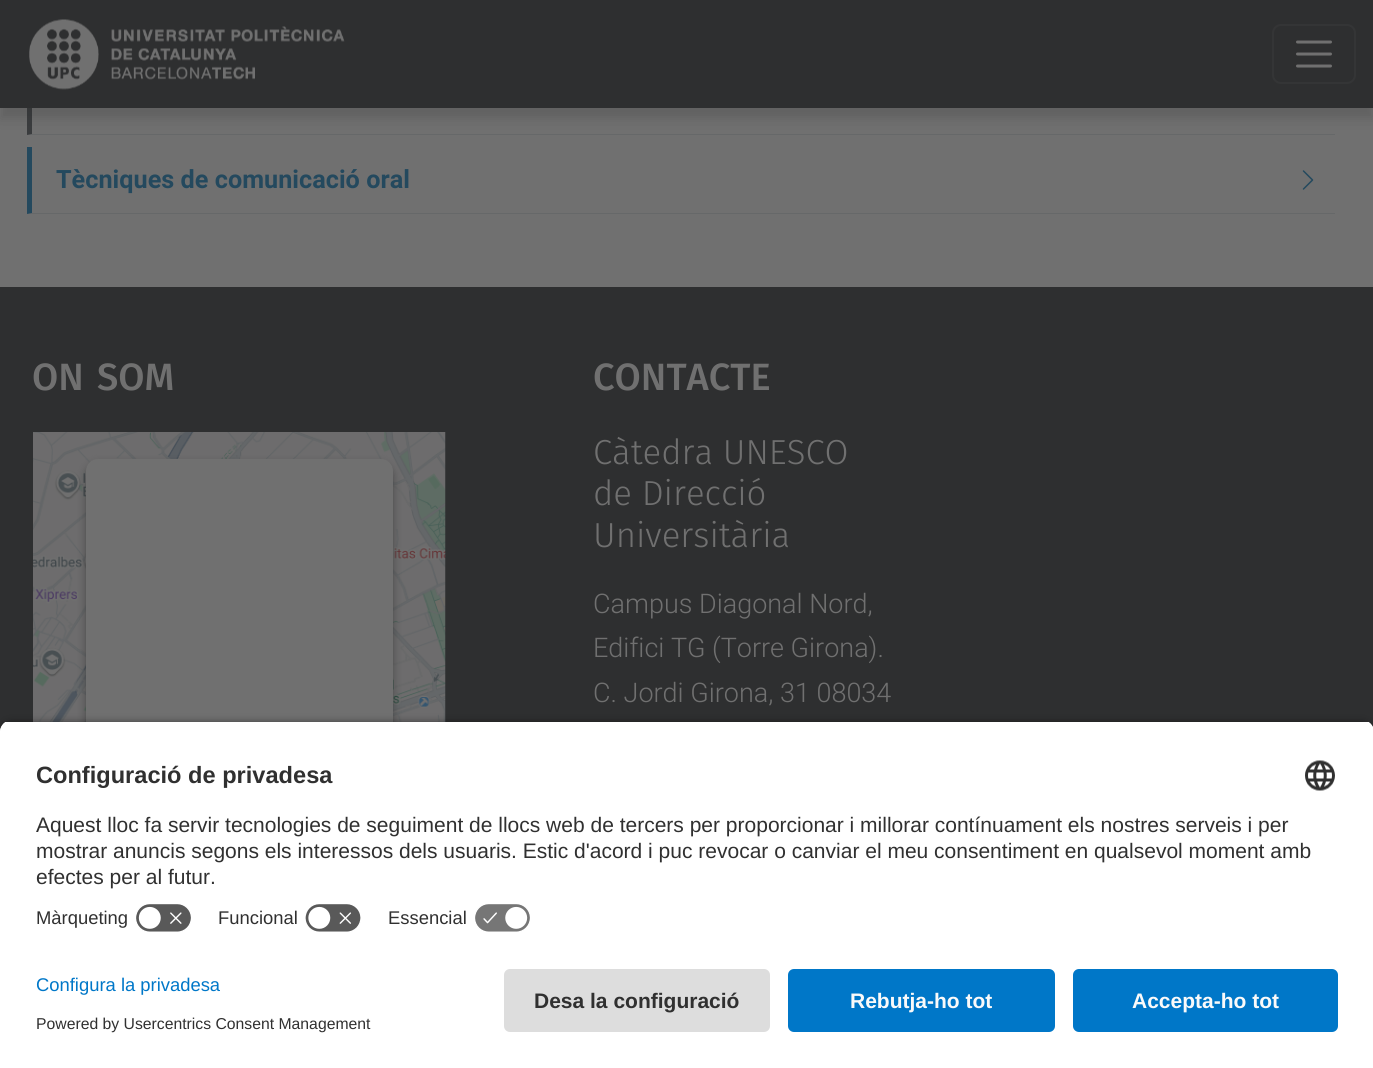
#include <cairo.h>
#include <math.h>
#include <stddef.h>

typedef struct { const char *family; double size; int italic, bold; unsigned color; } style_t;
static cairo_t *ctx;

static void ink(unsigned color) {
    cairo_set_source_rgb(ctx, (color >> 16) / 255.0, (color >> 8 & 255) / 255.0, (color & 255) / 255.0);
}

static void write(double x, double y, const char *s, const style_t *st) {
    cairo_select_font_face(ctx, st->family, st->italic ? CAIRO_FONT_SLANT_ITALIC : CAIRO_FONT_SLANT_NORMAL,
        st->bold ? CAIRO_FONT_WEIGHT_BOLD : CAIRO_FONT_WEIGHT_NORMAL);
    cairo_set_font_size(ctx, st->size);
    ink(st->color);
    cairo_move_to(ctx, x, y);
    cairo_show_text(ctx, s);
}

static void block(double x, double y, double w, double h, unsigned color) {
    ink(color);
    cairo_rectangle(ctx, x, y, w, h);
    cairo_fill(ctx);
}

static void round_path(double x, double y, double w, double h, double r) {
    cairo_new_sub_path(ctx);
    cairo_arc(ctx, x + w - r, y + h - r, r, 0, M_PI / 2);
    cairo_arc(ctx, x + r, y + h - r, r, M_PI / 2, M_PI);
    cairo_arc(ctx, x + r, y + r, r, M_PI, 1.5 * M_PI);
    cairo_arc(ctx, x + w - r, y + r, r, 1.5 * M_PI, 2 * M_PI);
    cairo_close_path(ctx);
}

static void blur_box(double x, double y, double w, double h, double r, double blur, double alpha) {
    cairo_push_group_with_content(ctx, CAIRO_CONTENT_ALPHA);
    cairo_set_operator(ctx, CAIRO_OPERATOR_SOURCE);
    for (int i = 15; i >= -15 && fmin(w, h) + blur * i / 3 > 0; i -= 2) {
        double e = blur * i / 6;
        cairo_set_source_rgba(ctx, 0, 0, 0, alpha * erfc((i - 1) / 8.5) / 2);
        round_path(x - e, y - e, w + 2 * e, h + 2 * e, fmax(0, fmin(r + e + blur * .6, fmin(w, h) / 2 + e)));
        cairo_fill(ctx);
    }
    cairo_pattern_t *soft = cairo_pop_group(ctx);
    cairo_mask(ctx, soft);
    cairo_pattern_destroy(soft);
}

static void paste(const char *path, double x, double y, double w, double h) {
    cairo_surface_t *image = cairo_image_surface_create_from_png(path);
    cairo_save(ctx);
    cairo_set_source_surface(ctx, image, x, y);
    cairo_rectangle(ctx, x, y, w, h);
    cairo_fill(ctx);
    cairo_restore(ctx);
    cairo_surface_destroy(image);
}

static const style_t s1 = {"Roboto", 25.25, 0, 1, 0x24495e};
static const style_t s2 = {"Fira Sans Medium", 38, 0, 0, 0x707070};
static const style_t s3 = {"Fira Sans Light", 34.75, 0, 0, 0x707070};
static const style_t s4 = {"Roboto Light", 27, 0, 0, 0x707070};
static const style_t s5 = {"Liberation Sans", 23.6, 0, 1, 0x303030};
static const style_t s6 = {"Liberation Sans", 21, 0, 0, 0x303030};
static const style_t s7 = {"Liberation Sans", 18.4, 0, 0, 0x303030};
static const style_t s8 = {"Liberation Sans", 18.4, 0, 0, 0x0077c8};
static const style_t s9 = {"Liberation Sans", 15.75, 0, 0, 0x303030};
static const style_t s10 = {"Liberation Sans", 21, 0, 1, 0x303030};
static const style_t s11 = {"Liberation Sans", 21, 0, 1, 0xfafafa};

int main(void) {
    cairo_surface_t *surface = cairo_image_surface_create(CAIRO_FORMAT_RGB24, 1373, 1068);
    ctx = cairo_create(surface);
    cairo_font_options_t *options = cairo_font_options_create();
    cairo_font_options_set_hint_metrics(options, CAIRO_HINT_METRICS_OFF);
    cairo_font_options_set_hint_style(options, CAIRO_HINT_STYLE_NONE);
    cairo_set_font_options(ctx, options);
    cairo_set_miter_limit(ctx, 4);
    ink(0x707070);
    cairo_paint(ctx);
    ink(0x666869);
    cairo_new_path(ctx);
    cairo_move_to(ctx, 1335, 135);
    cairo_line_to(ctx, 27, 135);
    cairo_line_to(ctx, 32, 134);
    cairo_line_to(ctx, 1335, 134);
    cairo_close_path(ctx);
    cairo_fill(ctx);
    ink(0x3a3c3e);
    cairo_new_path(ctx);
    cairo_move_to(ctx, 27, 135);
    cairo_line_to(ctx, 27, 69);
    cairo_line_to(ctx, 32, 69);
    cairo_line_to(ctx, 32, 134);
    cairo_close_path(ctx);
    cairo_fill(ctx);
    ink(0x242424);
    blur_box(0, 11, 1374, 108, 0, 6, 0.2);
    block(0, 0, 1373, 108, 0x2e2f30);
    paste("pic1.png", 29, 19, 316, 71);
    round_path(1273, 25, 82, 58, 8);
    ink(0x343536);
    cairo_stroke(ctx);
    cairo_new_path(ctx);
    cairo_move_to(ctx, 1297.5, 42);
    cairo_line_to(ctx, 1330.5, 42);
    cairo_move_to(ctx, 1297.5, 54);
    cairo_line_to(ctx, 1330.5, 54);
    cairo_move_to(ctx, 1297.5, 66);
    cairo_line_to(ctx, 1330.5, 66);
    ink(0x707070);
    cairo_set_line_width(ctx, 3);
    cairo_set_line_cap(ctx, CAIRO_LINE_CAP_ROUND);
    cairo_stroke(ctx);
    ink(0x666869);
    cairo_new_path(ctx);
    cairo_move_to(ctx, 1335, 214);
    cairo_line_to(ctx, 27, 214);
    cairo_line_to(ctx, 32, 213);
    cairo_line_to(ctx, 1335, 213);
    cairo_close_path(ctx);
    cairo_fill(ctx);
    ink(0x24495e);
    cairo_new_path(ctx);
    cairo_move_to(ctx, 27, 214);
    cairo_line_to(ctx, 27, 147);
    cairo_line_to(ctx, 32, 147);
    cairo_line_to(ctx, 32, 213);
    cairo_close_path(ctx);
    cairo_fill(ctx);
    write(56, 188, "Tècniques de comunicació oral", &s1);
    paste("pic2.png", 1302, 170, 12, 20);
    block(0, 287, 1373, 445, 0x2e2f30);
    write(32, 390, "ON", &s2);
    write(97, 390, "SOM", &s2);
    paste("pic3.png", 33, 432, 413, 290);
    ink(0x242424);
    blur_box(86, 464, 307, 427, 12, 4.5, 0.5);
    ink(0x707070);
    round_path(86, 459, 307, 428, 12);
    cairo_fill(ctx);
    write(593, 390, "CONTACTE", &s2);
    write(593, 464, "Càtedra UNESCO", &s3);
    write(593, 505, "de Direcció", &s3);
    write(593, 547, "Universitària", &s3);
    write(593, 613, "Campus Diagonal Nord,", &s4);
    write(593, 657, "Edifici TG (Torre Girona).", &s4);
    write(593, 702, "C. Jordi Girona, 31 08034", &s4);
    ink(0x000000);
    blur_box(0, 725, 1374, 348, 12, 5, 0.8);
    cairo_save(ctx);
    cairo_new_path(ctx);
    cairo_move_to(ctx, 12, 720);
    cairo_line_to(ctx, 1362, 720);
    cairo_curve_to(ctx, 1368.5, 720, 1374, 725.5, 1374, 732);
    cairo_line_to(ctx, 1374, 957);
    cairo_line_to(ctx, 0, 957);
    cairo_line_to(ctx, 0, 732);
    cairo_curve_to(ctx, 0, 725.5, 5.5, 720, 12, 720);
    cairo_close_path(ctx);
    cairo_clip(ctx);
    block(0, 722, 1373, 235, 0xffffff);
    block(0, 722, 1373, 175, 0xffffff);
    cairo_restore(ctx);
    write(36, 783, "Configuració de privadesa", &s5);
    paste("pic4.png", 1305, 760, 30, 31);
    write(36, 832, "Aquest lloc fa servir tecnologies de seguiment de llocs web de tercers per proporcionar i millorar contínuament els nostres serveis i per", &s6);
    write(36, 858, "mostrar anuncis segons els interessos dels usuaris. Estic d'acord i puc revocar o canviar el meu consentiment en qualsevol moment amb", &s6);
    write(36, 884, "efectes per al futur.", &s6);
    write(36, 924, "Màrqueting", &s7);
    paste("pic5.png", 136, 904, 55, 28);
    write(218, 924, "Funcional", &s7);
    paste("pic6.png", 305, 904, 56, 28);
    write(388, 924, "Essencial", &s7);
    paste("pic7.png", 475, 904, 55, 28);
    block(0, 957, 1373, 111, 0xffffff);
    write(36, 991, "Configura la privadesa", &s8);
    write(36, 1029, "Powered by Usercentrics Consent Management", &s9);
    ink(0xdddddd);
    round_path(504, 969, 266, 63, 6);
    cairo_fill(ctx);
    write(534, 1008, "Desa la configuració", &s10);
    ink(0x0077c8);
    round_path(788, 969, 267, 63, 6);
    cairo_fill(ctx);
    write(850, 1008, "Rebutja-ho tot", &s11);
    ink(0x0077c8);
    round_path(1073, 969, 265, 63, 6);
    cairo_fill(ctx);
    write(1132, 1008, "Accepta-ho tot", &s11);
    cairo_surface_write_to_png(surface, "screenshot.png");
    cairo_font_options_destroy(options);
    cairo_destroy(ctx);
    cairo_surface_destroy(surface);
    return 0;
}
